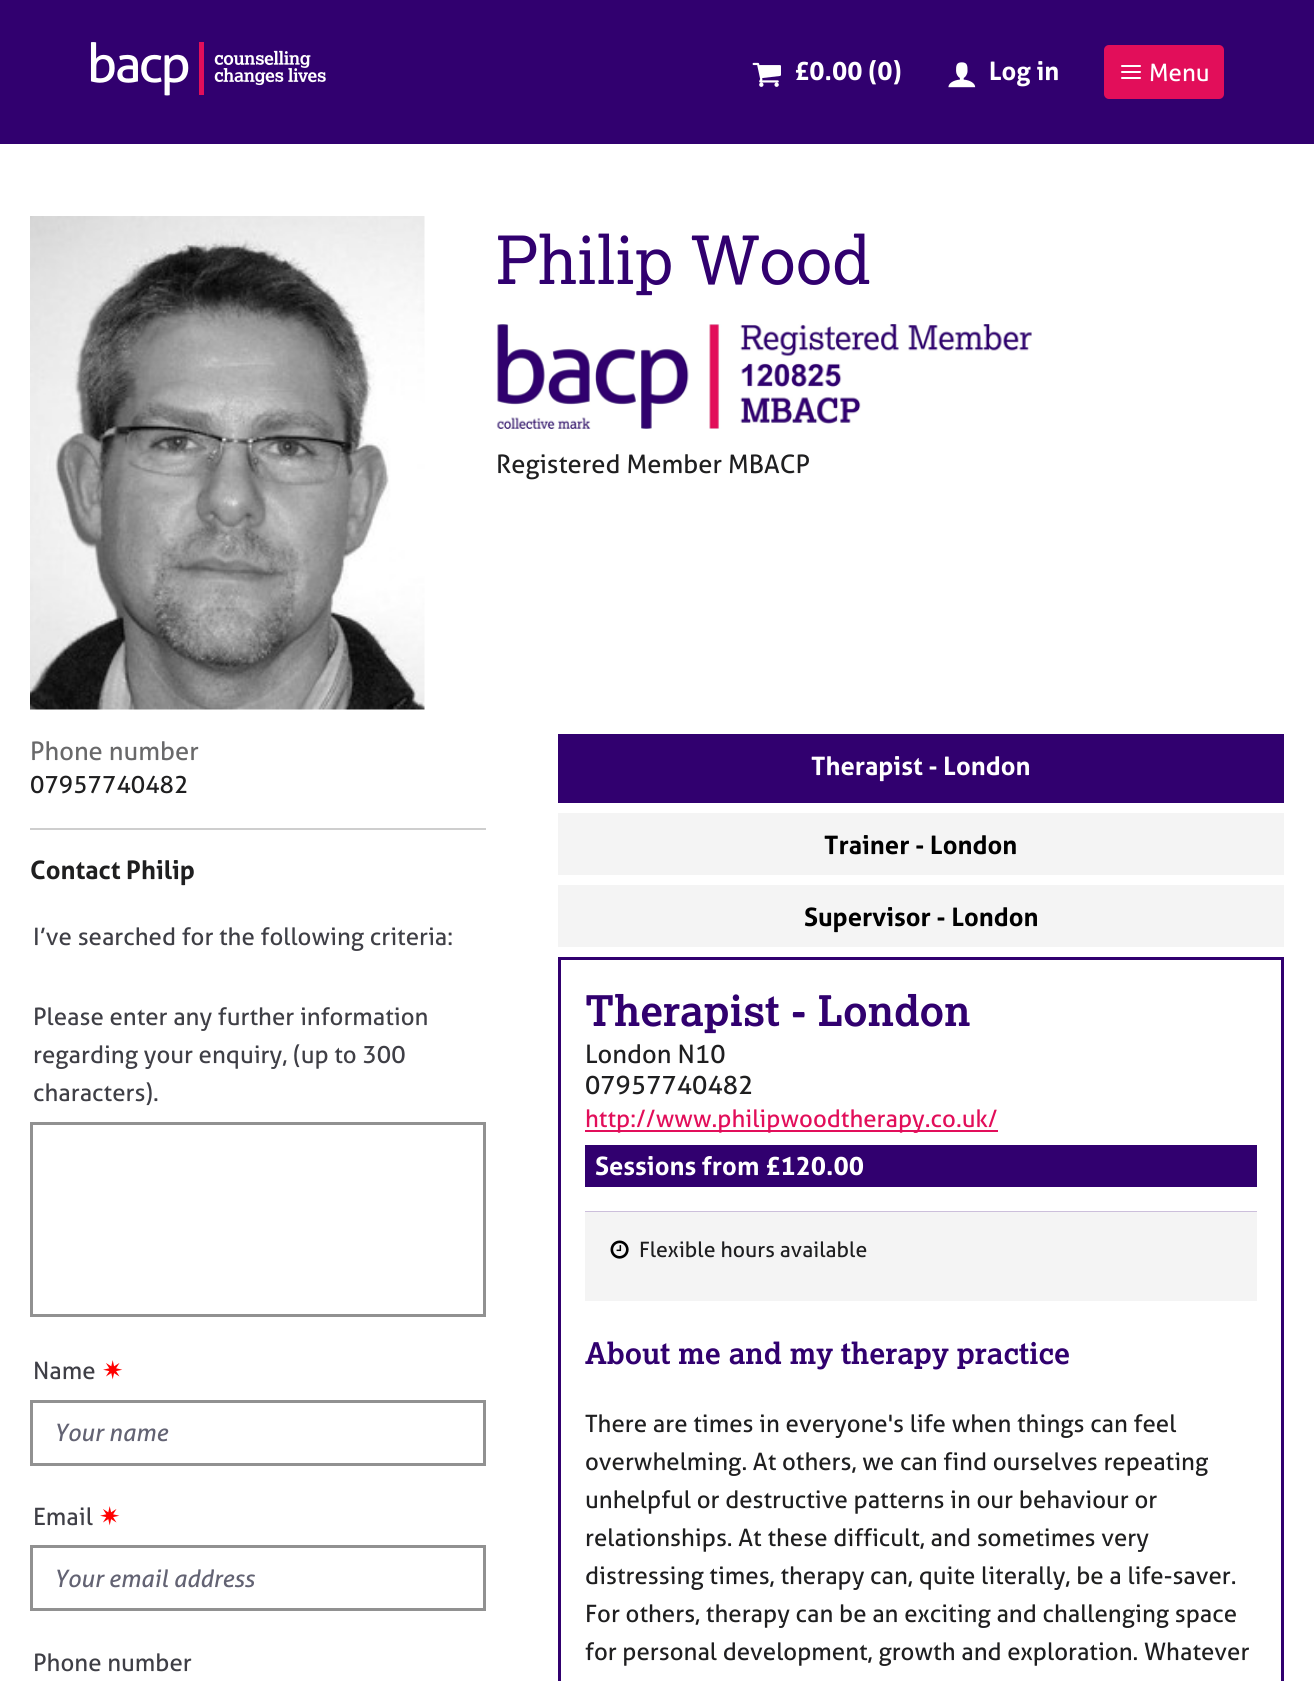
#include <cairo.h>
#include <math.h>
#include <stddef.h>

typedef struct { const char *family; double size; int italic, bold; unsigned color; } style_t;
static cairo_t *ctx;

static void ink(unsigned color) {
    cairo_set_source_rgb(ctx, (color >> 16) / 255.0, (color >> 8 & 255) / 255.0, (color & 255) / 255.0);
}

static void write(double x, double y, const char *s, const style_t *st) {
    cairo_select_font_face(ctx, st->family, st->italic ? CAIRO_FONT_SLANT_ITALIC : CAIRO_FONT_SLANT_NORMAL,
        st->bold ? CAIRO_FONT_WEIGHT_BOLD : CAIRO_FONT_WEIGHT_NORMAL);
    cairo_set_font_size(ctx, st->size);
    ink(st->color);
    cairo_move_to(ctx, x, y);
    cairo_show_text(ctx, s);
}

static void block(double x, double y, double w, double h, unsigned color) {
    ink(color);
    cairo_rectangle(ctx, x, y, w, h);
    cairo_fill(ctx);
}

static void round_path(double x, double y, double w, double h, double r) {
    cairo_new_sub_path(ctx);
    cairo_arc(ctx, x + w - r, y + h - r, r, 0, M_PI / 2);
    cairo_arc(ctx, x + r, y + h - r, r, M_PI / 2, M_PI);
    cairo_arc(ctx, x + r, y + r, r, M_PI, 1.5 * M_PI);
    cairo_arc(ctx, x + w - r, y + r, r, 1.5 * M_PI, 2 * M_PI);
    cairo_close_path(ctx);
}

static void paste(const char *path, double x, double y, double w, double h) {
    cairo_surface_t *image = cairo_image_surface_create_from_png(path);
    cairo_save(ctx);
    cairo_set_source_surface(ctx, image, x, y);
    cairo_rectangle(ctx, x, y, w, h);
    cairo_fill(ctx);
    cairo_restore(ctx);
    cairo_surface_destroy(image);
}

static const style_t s1 = {"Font", 25.5, 0, 1, 0xffffff};
static const style_t s2 = {"Font", 24, 0, 0, 0xffffff};
static const style_t s3 = {"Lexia", 66.5, 0, 0, 0x31006f};
static const style_t s4 = {"Font", 25.5, 0, 0, 0x1f1f20};
static const style_t s5 = {"Font", 25.5, 0, 0, 0x69696a};
static const style_t s6 = {"Font", 24, 0, 0, 0x1f1f20};
static const style_t s7 = {"Font", 25.5, 0, 1, 0x1f1f20};
static const style_t s8 = {"Font", 24, 0, 0, 0x3f3f46};
static const style_t s9 = {"DejaVu Sans", 25.5, 0, 0, 0xff0000};
static const style_t s10 = {"Font", 24, 1, 0, 0x636373};
static const style_t s11 = {"Font", 25.5, 0, 1, 0x000000};
static const style_t s12 = {"Lexia", 42.25, 0, 1, 0x31006f};
static const style_t s13 = {"Font", 24, 0, 0, 0xe20e5a};
static const style_t s14 = {"Font", 21.25, 0, 0, 0x1f1f20};
static const style_t s15 = {"Lexia", 29.6, 0, 1, 0x31006f};

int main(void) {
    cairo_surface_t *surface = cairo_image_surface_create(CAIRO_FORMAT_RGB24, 1314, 1681);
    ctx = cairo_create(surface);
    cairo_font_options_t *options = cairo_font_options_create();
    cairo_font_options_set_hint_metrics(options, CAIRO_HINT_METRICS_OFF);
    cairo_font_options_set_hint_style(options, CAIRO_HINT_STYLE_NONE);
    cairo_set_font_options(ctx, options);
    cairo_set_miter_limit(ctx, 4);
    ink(0xffffff);
    cairo_paint(ctx);
    block(0, 0, 1314, 144, 0x31006f);
    paste("pic1.png", 90, 42, 236, 54);
    paste("pic2.png", 752, 62, 29, 25);
    write(794, 80, "£0.00 (0)", &s1);
    paste("pic3.png", 948, 62, 28, 26);
    write(989, 80, "Log in", &s1);
    ink(0xe20e5a);
    round_path(1104, 45, 120, 54, 5);
    cairo_fill(ctx);
    paste("pic4.png", 1121, 65, 20, 14);
    write(1149, 81, "Menu", &s2);
    paste("pic5.png", 30, 216, 395, 494);
    write(496, 284, "Philip Wood", &s3);
    paste("pic6.png", 496, 324, 536, 105);
    write(496, 473, "Registered Member MBACP", &s4);
    block(30, 828, 456, 2, 0xcecece);
    write(30, 760, "Phone number", &s5);
    write(30, 793, "07957740482", &s6);
    write(30, 879, "Contact Philip", &s7);
    write(33, 945, "I’ve searched for the following criteria:", &s8);
    write(33, 1025, "Please enter any further information", &s8);
    write(33, 1063, "regarding your enquiry, (up to 300", &s8);
    write(33, 1101, "characters).", &s8);
    cairo_rectangle(ctx, 31.5, 1123.5, 453, 192);
    ink(0x919191);
    cairo_set_line_width(ctx, 3);
    cairo_stroke(ctx);
    write(33, 1379, "Name", &s8);
    write(102, 1379, "✷", &s9);
    cairo_rectangle(ctx, 31.5, 1401.5, 453, 63);
    ink(0x919191);
    cairo_stroke(ctx);
    write(54, 1441, "Your name", &s10);
    write(33, 1525, "Email", &s8);
    write(99, 1525, "✷", &s9);
    cairo_rectangle(ctx, 31.5, 1546.5, 453, 63);
    ink(0x919191);
    cairo_stroke(ctx);
    write(54, 1587, "Your email address", &s10);
    write(33, 1671, "Phone number", &s8);
    block(558, 734, 726, 69, 0x31006f);
    write(811, 775, "Therapist - London", &s1);
    block(558, 813, 726, 62, 0xf4f4f4);
    write(824, 854, "Trainer - London", &s11);
    block(558, 885, 726, 62, 0xf4f4f4);
    write(804, 926, "Supervisor - London", &s11);
    cairo_rectangle(ctx, 559.5, 958.5, 723, 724);
    ink(0x31006f);
    cairo_stroke(ctx);
    block(585, 1211, 672, 1, 0xccbfdb);
    write(585, 1026, "Therapist - London", &s12);
    write(585, 1063, "London N10", &s4);
    write(585, 1094, "07957740482", &s4);
    block(585, 1130, 413, 2, 0xe20e5a);
    write(585, 1127, "http://www.philipwoodtherapy.co.uk/", &s13);
    block(585, 1145, 672, 42, 0x31006f);
    write(595, 1175, "Sessions from £120.00", &s1);
    block(585, 1212, 672, 89, 0xf4f4f4);
    paste("pic7.png", 610, 1240, 19, 19);
    write(639, 1257, "Flexible hours available", &s14);
    write(585, 1364, "About me and my therapy practice", &s15);
    write(585, 1432, "There are times in everyone's life when things can feel", &s6);
    write(585, 1470, "overwhelming. At others, we can find ourselves repeating", &s6);
    write(585, 1508, "unhelpful or destructive patterns in our behaviour or", &s6);
    write(585, 1546, "relationships. At these difficult, and sometimes very", &s6);
    write(585, 1584, "distressing times, therapy can, quite literally, be a life-saver.", &s6);
    write(585, 1622, "For others, therapy can be an exciting and challenging space", &s6);
    write(585, 1660, "for personal development, growth and exploration. Whatever", &s6);
    cairo_surface_write_to_png(surface, "screenshot.png");
    cairo_font_options_destroy(options);
    cairo_destroy(ctx);
    cairo_surface_destroy(surface);
    return 0;
}
